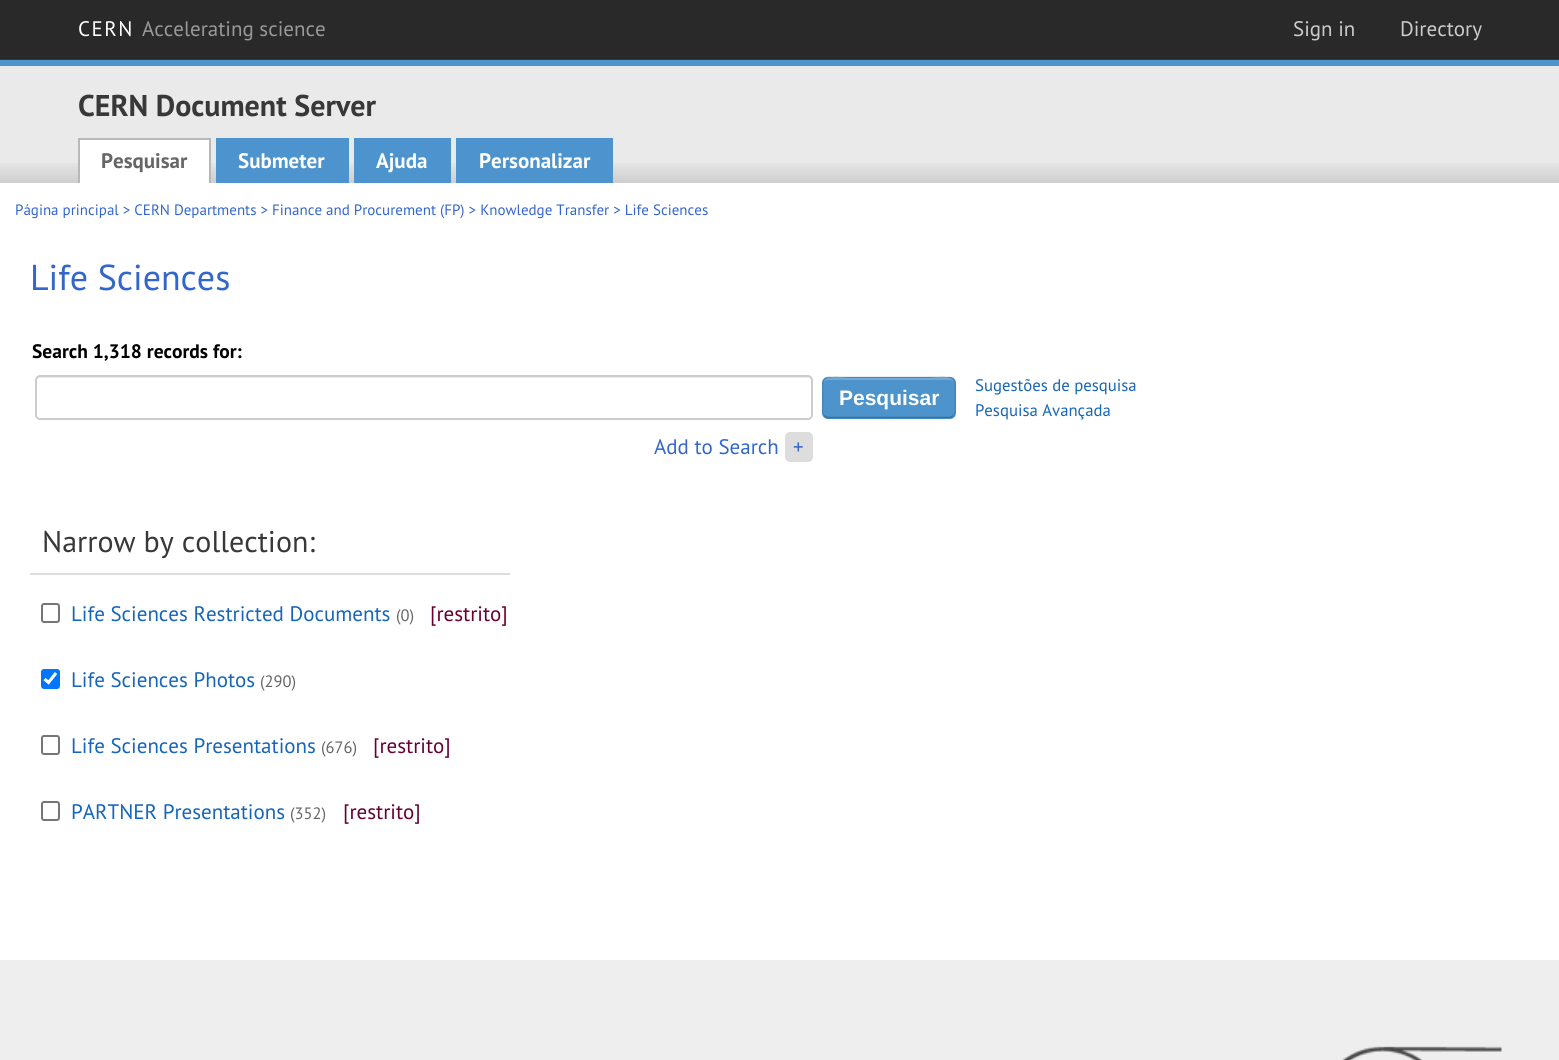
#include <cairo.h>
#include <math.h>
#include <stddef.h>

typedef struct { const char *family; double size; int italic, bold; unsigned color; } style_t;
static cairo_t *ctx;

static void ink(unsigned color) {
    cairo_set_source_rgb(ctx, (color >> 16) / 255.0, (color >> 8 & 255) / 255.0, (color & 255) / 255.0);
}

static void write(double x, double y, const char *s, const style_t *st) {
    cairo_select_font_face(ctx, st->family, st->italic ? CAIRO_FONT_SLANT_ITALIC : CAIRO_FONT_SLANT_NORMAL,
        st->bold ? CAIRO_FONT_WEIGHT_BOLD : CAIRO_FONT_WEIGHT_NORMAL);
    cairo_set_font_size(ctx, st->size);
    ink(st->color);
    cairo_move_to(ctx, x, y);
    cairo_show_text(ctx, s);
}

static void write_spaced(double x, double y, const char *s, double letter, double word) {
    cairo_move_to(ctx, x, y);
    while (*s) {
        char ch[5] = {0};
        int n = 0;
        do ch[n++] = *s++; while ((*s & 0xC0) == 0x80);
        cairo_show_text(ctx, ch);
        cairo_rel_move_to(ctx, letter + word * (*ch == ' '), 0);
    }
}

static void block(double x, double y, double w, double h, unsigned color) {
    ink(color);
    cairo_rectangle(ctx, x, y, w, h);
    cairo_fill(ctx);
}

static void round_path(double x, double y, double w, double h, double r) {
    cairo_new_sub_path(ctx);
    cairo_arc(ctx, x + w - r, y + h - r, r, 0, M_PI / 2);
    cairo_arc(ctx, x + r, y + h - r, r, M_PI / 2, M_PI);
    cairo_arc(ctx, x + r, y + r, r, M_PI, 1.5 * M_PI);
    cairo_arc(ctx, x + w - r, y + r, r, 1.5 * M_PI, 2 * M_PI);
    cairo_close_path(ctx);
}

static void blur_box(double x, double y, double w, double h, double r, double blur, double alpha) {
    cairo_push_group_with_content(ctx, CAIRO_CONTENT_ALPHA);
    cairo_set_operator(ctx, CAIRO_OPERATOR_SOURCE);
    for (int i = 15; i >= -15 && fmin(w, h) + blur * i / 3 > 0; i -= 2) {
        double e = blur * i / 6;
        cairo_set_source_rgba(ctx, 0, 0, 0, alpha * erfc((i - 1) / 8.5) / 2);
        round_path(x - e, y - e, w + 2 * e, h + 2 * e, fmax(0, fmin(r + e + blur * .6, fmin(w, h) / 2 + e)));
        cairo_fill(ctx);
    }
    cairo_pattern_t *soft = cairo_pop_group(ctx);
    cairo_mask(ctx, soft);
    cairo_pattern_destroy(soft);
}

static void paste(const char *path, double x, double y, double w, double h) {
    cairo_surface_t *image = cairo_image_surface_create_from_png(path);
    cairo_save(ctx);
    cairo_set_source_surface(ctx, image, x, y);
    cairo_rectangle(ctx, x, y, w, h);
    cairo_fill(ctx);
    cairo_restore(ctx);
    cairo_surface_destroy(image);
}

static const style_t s1 = {"PT Sans", 21, 0, 0, 0x999999};
static const style_t s2 = {"PT Sans", 21, 0, 0, 0xcccccc};
static const style_t s3 = {"PT Sans", 30, 0, 1, 0x383838};
static const style_t s4 = {"PT Sans", 21, 0, 1, 0x666666};
static const style_t s5 = {"PT Sans", 21, 0, 1, 0xffffff};
static const style_t s6 = {"PT Sans", 15, 0, 0, 0x3366cc};
static const style_t s7 = {"PT Sans", 36, 0, 0, 0x3366cc};
static const style_t s8 = {"PT Sans", 19.5, 0, 1, 0x000000};
static const style_t s9 = {"Liberation Sans", 21, 0, 1, 0xffffff};
static const style_t s10 = {"PT Sans", 16.75, 0, 0, 0x1565ba};
static const style_t s11 = {"PT Sans", 21, 0, 0, 0x3366cc};
static const style_t s12 = {"PT Sans", 30, 0, 0, 0x383838};
static const style_t s13 = {"PT Sans", 21, 0, 0, 0x1565ba};
static const style_t s14 = {"PT Sans", 16.5, 0, 0, 0x666666};
static const style_t s15 = {"PT Sans", 21, 0, 0, 0x660033};

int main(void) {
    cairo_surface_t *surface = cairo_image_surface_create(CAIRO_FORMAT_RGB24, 1559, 1060);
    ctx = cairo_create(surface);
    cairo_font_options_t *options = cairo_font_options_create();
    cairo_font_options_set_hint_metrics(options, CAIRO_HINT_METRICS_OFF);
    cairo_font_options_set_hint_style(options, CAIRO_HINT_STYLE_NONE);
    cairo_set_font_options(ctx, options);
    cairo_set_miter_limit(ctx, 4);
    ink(0xffffff);
    cairo_paint(ctx);
    block(0, 0, 1559, 59, 0x292929);
    block(0, 59, 1559, 1, 0x353535);
    cairo_select_font_face(ctx, "PT Sans", CAIRO_FONT_SLANT_NORMAL, CAIRO_FONT_WEIGHT_NORMAL);
    cairo_set_font_size(ctx, 21);
    ink(0xffffff);
    write_spaced(78, 36, "CERN", 1.5, 0);
    write(142, 36, "Accelerating science", &s1);
    write(1293, 36, "Sign in", &s2);
    write(1400, 36, "Directory", &s2);
    block(0, 66, 1559, 117, 0xeaeaea);
    paste("pic1.png", 0, 163, 1559, 20);
    block(0, 60, 1559, 6, 0x4d94cc);
    write(78, 116, "CERN Document Server", &s3);
    block(80, 140, 129, 43, 0xffffff);
    block(78, 138, 132, 2, 0xb8b8b8);
    block(209, 138, 2, 45, 0xb8b8b8);
    block(78, 138, 2, 45, 0xb8b8b8);
    write(101, 168, "Pesquisar", &s4);
    block(216, 138, 133, 45, 0x4d94ce);
    write(238, 168, "Submeter", &s5);
    block(354, 138, 97, 45, 0x4d94ce);
    write(376, 168, "Ajuda", &s5);
    block(456, 138, 157, 45, 0x4d94ce);
    write(479, 168, "Personalizar", &s5);
    write(15, 215, "Página principal > CERN Departments > Finance and Procurement (FP) > Knowledge Transfer > Life Sciences", &s6);
    write(30, 290, "Life Sciences", &s7);
    write(32, 358, "Search 1,318 records for:", &s8);
    ink(0xececec);
    cairo_new_path(ctx);
    cairo_move_to(ctx, 39, 378);
    cairo_line_to(ctx, 808, 378);
    cairo_curve_to(ctx, 810, 378, 812, 379, 812, 381);
    cairo_curve_to(ctx, 812, 379, 811, 377, 809, 377);
    cairo_line_to(ctx, 39, 377);
    cairo_curve_to(ctx, 37, 377, 36, 379, 36, 381);
    cairo_curve_to(ctx, 36, 379, 37, 378, 39, 378);
    cairo_close_path(ctx);
    cairo_fill(ctx);
    round_path(36, 376, 776, 43, 4);
    ink(0xcccccc);
    cairo_stroke(ctx);
    ink(0x000000);
    blur_box(822, 378, 134, 42, 6, 1.5, 0.05);
    ink(0x4d94cc);
    round_path(822, 377, 134, 42, 6);
    cairo_fill(ctx);
    ink(0x71a9d6);
    cairo_new_path(ctx);
    cairo_move_to(ctx, 828, 380);
    cairo_line_to(ctx, 950, 380);
    cairo_curve_to(ctx, 952, 380, 954, 382, 954, 384);
    cairo_curve_to(ctx, 954, 373, 933, 378, 929, 378);
    cairo_line_to(ctx, 849, 378);
    cairo_curve_to(ctx, 845, 378, 824, 373, 824, 384);
    cairo_curve_to(ctx, 824, 382, 826, 380, 828, 380);
    cairo_close_path(ctx);
    cairo_fill(ctx);
    cairo_new_path(ctx);
    cairo_move_to(ctx, 953, 416);
    cairo_line_to(ctx, 950, 417.5);
    cairo_line_to(ctx, 827.5, 417.5);
    cairo_line_to(ctx, 824.5, 416);
    ink(0x3a6f99);
    cairo_set_line_width(ctx, 1.5);
    cairo_stroke(ctx);
    cairo_new_path(ctx);
    cairo_move_to(ctx, 824.5, 416);
    cairo_curve_to(ctx, 821, 413, 823, 406, 823, 402.5);
    cairo_curve_to(ctx, 823, 373.5, 818, 377, 848, 377);
    cairo_line_to(ctx, 929, 377);
    cairo_curve_to(ctx, 959.5, 377, 955, 373.5, 955, 402.5);
    cairo_curve_to(ctx, 955, 406, 956.5, 413, 953, 416);
    cairo_set_source_rgba(ctx, 0, 0, 0, 0.1);
    cairo_stroke(ctx);
    write(839, 405, "Pesquisar", &s9);
    write(975, 391, "Sugestões de pesquisa", &s10);
    write(975, 416, "Pesquisa Avançada", &s10);
    write(654, 454, "Add to Search", &s11);
    ink(0xdddddd);
    round_path(785, 432, 28, 30, 5);
    cairo_fill(ctx);
    write(793, 454, "+", &s11);
    block(30, 573, 480, 2, 0xdddddd);
    write(42, 552, "Narrow by collection:", &s12);
    round_path(42, 604, 17, 18, 2);
    ink(0x767676);
    cairo_set_line_width(ctx, 2);
    cairo_stroke(ctx);
    write(71, 621, "Life Sciences Restricted Documents", &s13);
    write(396, 621, "(0)", &s14);
    write(430, 621, "[restrito]", &s15);
    ink(0x0075ff);
    round_path(41, 669, 19, 20, 3);
    cairo_fill(ctx);
    cairo_new_path(ctx);
    cairo_move_to(ctx, 44.5, 679);
    cairo_line_to(ctx, 48.5, 682.5);
    cairo_line_to(ctx, 56, 673);
    ink(0xffffff);
    cairo_set_line_width(ctx, 3.1);
    cairo_stroke(ctx);
    write(71, 687, "Life Sciences Photos", &s13);
    write(260, 687, "(290)", &s14);
    round_path(42, 736, 17, 18, 2);
    ink(0x767676);
    cairo_set_line_width(ctx, 2);
    cairo_stroke(ctx);
    write(71, 753, "Life Sciences Presentations", &s13);
    write(321, 753, "(676)", &s14);
    write(373, 753, "[restrito]", &s15);
    round_path(42, 802, 17, 18, 2);
    ink(0x767676);
    cairo_stroke(ctx);
    write(71, 819, "PARTNER Presentations", &s13);
    write(290, 819, "(352)", &s14);
    write(343, 819, "[restrito]", &s15);
    block(0, 960, 1559, 100, 0xeeeeee);
    paste("pic2.png", 1342, 1046, 160, 14);
    cairo_surface_write_to_png(surface, "screenshot.png");
    cairo_font_options_destroy(options);
    cairo_destroy(ctx);
    cairo_surface_destroy(surface);
    return 0;
}
